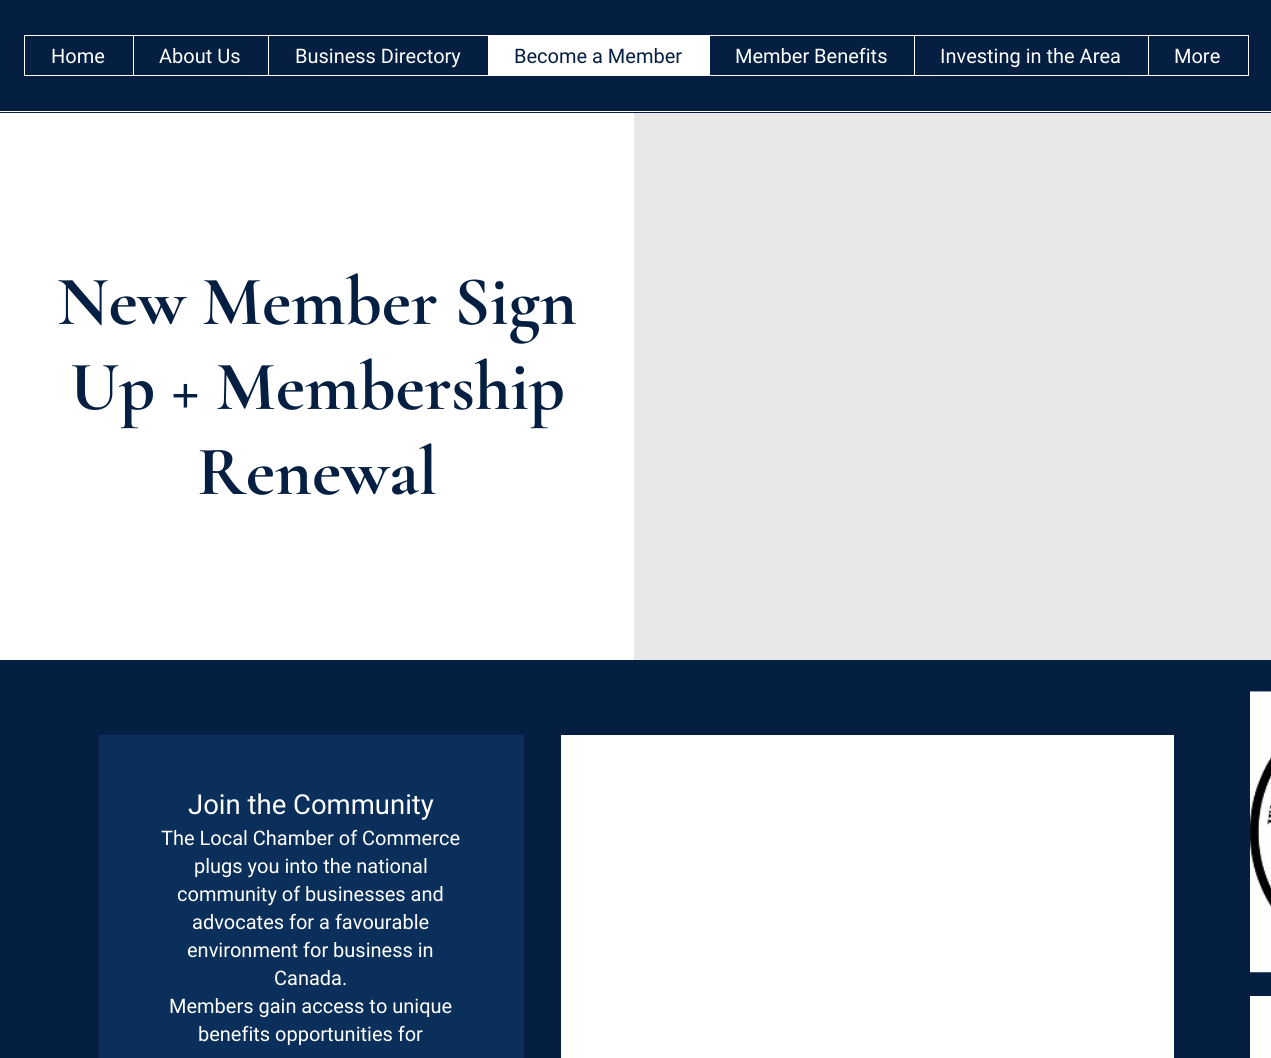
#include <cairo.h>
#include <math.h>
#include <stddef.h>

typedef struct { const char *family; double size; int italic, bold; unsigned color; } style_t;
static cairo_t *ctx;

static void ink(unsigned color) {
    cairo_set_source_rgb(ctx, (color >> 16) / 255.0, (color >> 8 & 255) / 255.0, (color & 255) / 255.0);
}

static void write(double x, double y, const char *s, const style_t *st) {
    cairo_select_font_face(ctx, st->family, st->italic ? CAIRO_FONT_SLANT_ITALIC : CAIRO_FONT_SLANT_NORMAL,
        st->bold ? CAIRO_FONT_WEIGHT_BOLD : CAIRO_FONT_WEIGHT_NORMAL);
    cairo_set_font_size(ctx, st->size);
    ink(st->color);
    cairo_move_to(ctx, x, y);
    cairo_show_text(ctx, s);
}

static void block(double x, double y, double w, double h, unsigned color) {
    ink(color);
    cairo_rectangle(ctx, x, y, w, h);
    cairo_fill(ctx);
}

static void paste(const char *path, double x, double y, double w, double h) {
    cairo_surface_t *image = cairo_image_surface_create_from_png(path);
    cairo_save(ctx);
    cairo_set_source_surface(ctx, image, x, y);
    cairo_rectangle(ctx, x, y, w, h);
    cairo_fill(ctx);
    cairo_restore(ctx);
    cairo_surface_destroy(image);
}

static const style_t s1 = {"Roboto", 20, 0, 0, 0xfffffe};
static const style_t s2 = {"Roboto", 20, 0, 0, 0x041f42};
static const style_t s3 = {"Cormorant Garamond", 70, 0, 1, 0x041f42};
static const style_t s4 = {"Roboto", 27.5, 0, 0, 0xfffffe};

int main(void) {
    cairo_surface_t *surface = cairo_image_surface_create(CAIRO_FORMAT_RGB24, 1271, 1058);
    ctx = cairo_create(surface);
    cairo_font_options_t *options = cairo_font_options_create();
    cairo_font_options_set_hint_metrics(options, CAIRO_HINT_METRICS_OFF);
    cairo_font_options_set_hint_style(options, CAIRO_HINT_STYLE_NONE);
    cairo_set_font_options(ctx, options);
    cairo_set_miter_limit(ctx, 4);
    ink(0xffffff);
    cairo_paint(ctx);
    block(0, 0, 1271, 113, 0x041f42);
    block(0, 111, 1271, 1, 0xffffff);
    cairo_rectangle(ctx, 24.5, 35.5, 1224, 40);
    cairo_set_line_width(ctx, 1);
    cairo_stroke(ctx);
    write(51, 63, "Home", &s1);
    block(133, 36, 1, 39, 0xffffff);
    write(159, 63, "About Us", &s1);
    block(268, 36, 1, 39, 0xffffff);
    write(295, 63, "Business Directory", &s1);
    block(488, 36, 222, 39, 0xffffff);
    write(514, 63, "Become a Member", &s2);
    write(735, 63, "Member Benefits", &s1);
    block(914, 36, 1, 39, 0xffffff);
    write(940, 63, "Investing in the Area", &s1);
    block(1148, 36, 1, 39, 0xffffff);
    write(1174, 63, "More", &s1);
    write(57, 324, "New Member Sign", &s3);
    write(70, 409, "Up + Membership", &s3);
    write(197, 494, "Renewal", &s3);
    block(634, 113, 637, 547, 0xe8e6e6);
    block(0, 660, 1271, 398, 0x041f42);
    block(99, 735, 425, 323, 0x0b2f5b);
    write(188, 814, "Join the Community", &s4);
    write(161, 845, "The Local Chamber of Commerce", &s1);
    write(194, 873, "plugs you into the national", &s1);
    write(177, 901, "community of businesses and", &s1);
    write(192, 929, "advocates for a favourable", &s1);
    write(187, 957, "environment for business in", &s1);
    write(274, 985, "Canada.", &s1);
    write(169, 1013, "Members gain access to unique", &s1);
    write(198, 1041, "benefits opportunities for", &s1);
    block(561, 735, 613, 323, 0xffffff);
    paste("pic1.png", 1250, 691, 21, 282);
    block(1250, 996, 21, 62, 0xffffff);
    cairo_surface_write_to_png(surface, "screenshot.png");
    cairo_font_options_destroy(options);
    cairo_destroy(ctx);
    cairo_surface_destroy(surface);
    return 0;
}
